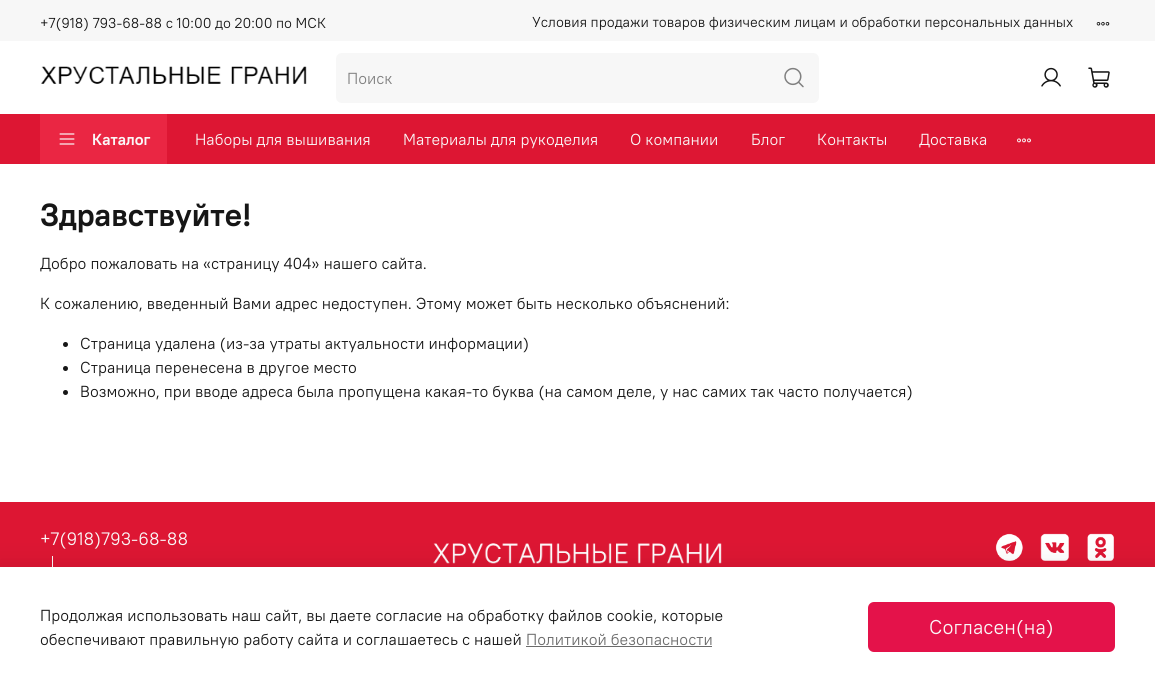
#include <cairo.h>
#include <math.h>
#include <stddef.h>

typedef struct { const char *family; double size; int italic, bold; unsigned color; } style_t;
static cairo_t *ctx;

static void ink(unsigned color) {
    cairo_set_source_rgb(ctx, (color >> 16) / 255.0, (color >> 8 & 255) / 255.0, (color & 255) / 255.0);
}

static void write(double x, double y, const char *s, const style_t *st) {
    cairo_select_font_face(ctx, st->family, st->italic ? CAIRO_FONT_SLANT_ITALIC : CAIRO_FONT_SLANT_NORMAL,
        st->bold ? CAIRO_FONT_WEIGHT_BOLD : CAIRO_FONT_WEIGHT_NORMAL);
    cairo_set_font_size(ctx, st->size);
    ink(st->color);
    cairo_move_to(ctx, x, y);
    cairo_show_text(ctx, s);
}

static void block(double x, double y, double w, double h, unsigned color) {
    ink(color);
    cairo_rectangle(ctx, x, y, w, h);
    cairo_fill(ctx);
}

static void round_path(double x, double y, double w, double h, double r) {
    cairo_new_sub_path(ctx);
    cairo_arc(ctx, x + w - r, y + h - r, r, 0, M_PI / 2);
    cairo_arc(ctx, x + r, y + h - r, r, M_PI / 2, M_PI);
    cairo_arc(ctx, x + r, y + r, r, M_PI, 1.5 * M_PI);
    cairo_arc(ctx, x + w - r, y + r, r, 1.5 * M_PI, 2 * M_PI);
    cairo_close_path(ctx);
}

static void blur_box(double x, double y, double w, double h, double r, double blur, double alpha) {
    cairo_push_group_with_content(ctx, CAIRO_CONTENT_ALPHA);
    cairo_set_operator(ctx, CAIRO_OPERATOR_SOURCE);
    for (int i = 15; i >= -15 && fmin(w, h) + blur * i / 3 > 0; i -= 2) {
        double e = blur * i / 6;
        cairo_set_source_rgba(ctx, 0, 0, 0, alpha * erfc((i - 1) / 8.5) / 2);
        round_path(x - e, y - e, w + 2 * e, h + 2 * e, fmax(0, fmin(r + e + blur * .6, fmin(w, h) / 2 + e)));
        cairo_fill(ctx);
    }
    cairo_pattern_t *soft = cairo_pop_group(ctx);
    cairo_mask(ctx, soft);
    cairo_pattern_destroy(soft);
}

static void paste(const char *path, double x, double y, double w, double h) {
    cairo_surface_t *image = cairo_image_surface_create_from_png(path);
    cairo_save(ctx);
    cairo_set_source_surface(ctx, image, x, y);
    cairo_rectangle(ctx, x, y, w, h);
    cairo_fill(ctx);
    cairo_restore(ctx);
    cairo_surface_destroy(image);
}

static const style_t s1 = {"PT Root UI", 14.4, 0, 0, 0x161616};
static const style_t s2 = {"PT Root UI", 16, 0, 0, 0x808080};
static const style_t s3 = {"PT Root UI", 16, 0, 1, 0xfaf7f7};
static const style_t s4 = {"PT Root UI", 16, 0, 0, 0xfaf7f7};
static const style_t s5 = {"PT Root UI", 32, 0, 1, 0x161616};
static const style_t s6 = {"PT Root UI", 16, 0, 0, 0x161616};
static const style_t s7 = {"PT Root UI", 18, 0, 0, 0xfaf7f7};
static const style_t s8 = {"PT Root UI", 16, 0, 0, 0x6b6b6b};
static const style_t s9 = {"PT Root UI", 20, 0, 0, 0xfaf7f7};

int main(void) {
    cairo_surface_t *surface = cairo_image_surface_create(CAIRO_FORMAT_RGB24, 1155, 675);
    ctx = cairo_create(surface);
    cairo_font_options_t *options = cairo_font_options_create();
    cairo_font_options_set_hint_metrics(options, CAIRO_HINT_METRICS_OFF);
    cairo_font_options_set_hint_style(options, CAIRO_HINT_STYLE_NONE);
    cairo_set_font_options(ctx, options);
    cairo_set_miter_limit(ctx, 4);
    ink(0xffffff);
    cairo_paint(ctx);
    block(0, 0, 1155, 41, 0xf7f7f7);
    write(40, 28, "+7(918) 793-68-88 с 10:00 до 20:00 по МСК", &s1);
    write(532, 27, "Условия продажи товаров физическим лицам и обработки персональных данных", &s1);
    paste("pic1.png", 1096, 22, 14, 4);
    paste("pic2.png", 41, 66, 266, 18);
    ink(0xf7f7f7);
    cairo_new_path(ctx);
    cairo_move_to(ctx, 342, 53);
    cairo_line_to(ctx, 769, 53);
    cairo_line_to(ctx, 769, 103);
    cairo_line_to(ctx, 342, 103);
    cairo_curve_to(ctx, 338.5, 103, 336, 100.5, 336, 97);
    cairo_line_to(ctx, 336, 59);
    cairo_curve_to(ctx, 336, 55.5, 338.5, 53, 342, 53);
    cairo_close_path(ctx);
    cairo_fill(ctx);
    write(347, 84, "Поиск", &s2);
    ink(0xf7f7f7);
    cairo_new_path(ctx);
    cairo_move_to(ctx, 769, 53);
    cairo_line_to(ctx, 813, 53);
    cairo_curve_to(ctx, 816.5, 53, 819, 55.5, 819, 59);
    cairo_line_to(ctx, 819, 97);
    cairo_curve_to(ctx, 819, 100.5, 816.5, 103, 813, 103);
    cairo_line_to(ctx, 769, 103);
    cairo_close_path(ctx);
    cairo_fill(ctx);
    paste("pic3.png", 784, 67, 20, 21);
    paste("pic4.png", 1041, 67, 20, 20);
    paste("pic5.png", 1088, 67, 22, 21);
    block(0, 114, 1155, 50, 0xdd1633);
    block(40, 114, 127, 50, 0xea2643);
    paste("pic6.png", 59, 133, 16, 12);
    write(92, 145, "Каталог", &s3);
    write(195, 145, "Наборы для вышивания", &s4);
    write(403, 145, "Материалы для рукоделия", &s4);
    write(630, 145, "О компании", &s4);
    write(751, 145, "Блог", &s4);
    write(817, 145, "Контакты", &s4);
    write(919, 145, "Доставка", &s4);
    paste("pic7.png", 1017, 138, 14, 5);
    write(40, 226, "Здравствуйте!", &s5);
    write(40, 269, "Добро пожаловать на «страницу 404» нашего сайта.", &s6);
    write(40, 309, "К сожалению, введенный Вами адрес недоступен. Этому может быть несколько объяснений:", &s6);
    cairo_new_path(ctx);
    cairo_arc(ctx, 65.5, 344.5, 2.5, 0, 2 * M_PI);
    cairo_fill(ctx);
    write(80, 349, "Страница удалена (из-за утраты актуальности информации)", &s6);
    cairo_new_path(ctx);
    cairo_arc(ctx, 65.5, 368.5, 2.5, 0, 2 * M_PI);
    cairo_fill(ctx);
    write(80, 373, "Страница перенесена в другое место", &s6);
    cairo_new_path(ctx);
    cairo_arc(ctx, 65.5, 392.5, 2.5, 0, 2 * M_PI);
    cairo_fill(ctx);
    write(80, 397, "Возможно, при вводе адреса была пропущена какая-то буква (на самом деле, у нас самих так часто получается)", &s6);
    block(0, 502, 1155, 65, 0xdd1633);
    write(40, 545, "+7(918)793-68-88", &s7);
    block(52, 556, 1, 11, 0xfaf7f7);
    paste("pic8.png", 433, 543, 289, 21);
    paste("pic9.png", 995, 533, 28, 28);
    paste("pic10.png", 1040, 533, 29, 28);
    paste("pic11.png", 1087, 533, 27, 28);
    ink(0x000000);
    blur_box(-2, 564, 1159, 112, 0, 11.5, 0.09);
    block(0, 567, 1155, 108, 0xffffff);
    write(40, 621, "Продолжая использовать наш сайт, вы даете согласие на обработку файлов cookie, которые", &s6);
    write(40, 645, "обеспечивают правильную работу сайта и соглашаетесь с нашей", &s6);
    write(526, 645, "Политикой безопасности", &s8);
    block(526, 646, 186, 1, 0x6b6b6b);
    ink(0xe4124a);
    round_path(868, 602, 247, 50, 6);
    cairo_fill(ctx);
    write(929, 634, "Согласен(на)", &s9);
    cairo_surface_write_to_png(surface, "screenshot.png");
    cairo_font_options_destroy(options);
    cairo_destroy(ctx);
    cairo_surface_destroy(surface);
    return 0;
}
